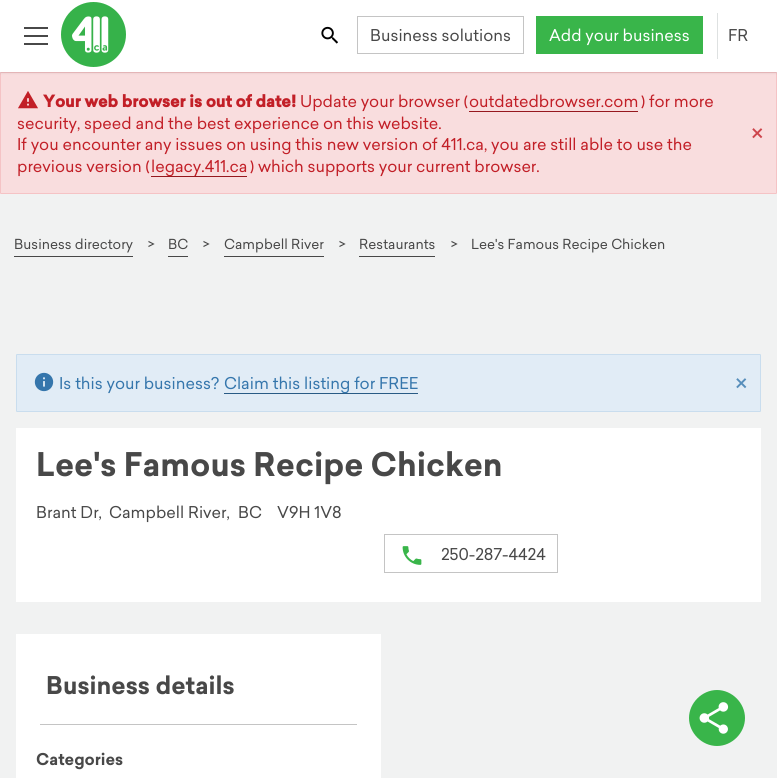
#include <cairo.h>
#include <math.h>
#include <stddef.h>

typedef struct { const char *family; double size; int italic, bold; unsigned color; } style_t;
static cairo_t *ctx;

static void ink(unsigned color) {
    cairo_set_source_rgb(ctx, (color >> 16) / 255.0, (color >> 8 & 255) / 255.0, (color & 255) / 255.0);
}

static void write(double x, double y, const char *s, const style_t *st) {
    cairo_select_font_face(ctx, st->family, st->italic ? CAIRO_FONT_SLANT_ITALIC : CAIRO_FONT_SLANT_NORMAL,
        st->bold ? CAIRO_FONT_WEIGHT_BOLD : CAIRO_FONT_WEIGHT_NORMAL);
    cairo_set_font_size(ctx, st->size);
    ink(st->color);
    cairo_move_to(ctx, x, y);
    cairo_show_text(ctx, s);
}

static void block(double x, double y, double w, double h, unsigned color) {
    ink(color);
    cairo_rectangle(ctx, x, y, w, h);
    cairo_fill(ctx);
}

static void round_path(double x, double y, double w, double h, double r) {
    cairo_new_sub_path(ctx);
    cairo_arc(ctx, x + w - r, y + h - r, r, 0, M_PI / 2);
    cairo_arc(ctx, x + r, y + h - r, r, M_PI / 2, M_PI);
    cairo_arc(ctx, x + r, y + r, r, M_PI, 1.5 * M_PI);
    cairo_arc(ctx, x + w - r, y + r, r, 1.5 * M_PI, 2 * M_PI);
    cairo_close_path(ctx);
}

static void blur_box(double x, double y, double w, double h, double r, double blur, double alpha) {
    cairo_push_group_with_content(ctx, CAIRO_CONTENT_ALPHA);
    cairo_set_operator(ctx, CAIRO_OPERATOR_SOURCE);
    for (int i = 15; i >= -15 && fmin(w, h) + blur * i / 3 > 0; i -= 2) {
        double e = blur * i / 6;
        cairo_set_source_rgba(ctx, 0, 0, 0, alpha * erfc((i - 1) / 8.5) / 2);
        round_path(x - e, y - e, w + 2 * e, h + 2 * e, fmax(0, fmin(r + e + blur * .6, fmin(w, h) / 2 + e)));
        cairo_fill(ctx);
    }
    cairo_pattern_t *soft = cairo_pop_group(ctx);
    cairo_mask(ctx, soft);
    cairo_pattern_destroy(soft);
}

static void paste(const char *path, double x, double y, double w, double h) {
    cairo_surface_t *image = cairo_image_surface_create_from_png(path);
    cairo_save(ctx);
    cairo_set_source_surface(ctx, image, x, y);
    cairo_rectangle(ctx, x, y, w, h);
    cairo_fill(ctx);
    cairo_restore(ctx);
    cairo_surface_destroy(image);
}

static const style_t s1 = {"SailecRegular", 16, 0, 0, 0x484848};
static const style_t s2 = {"SailecRegular", 16, 0, 0, 0xffffff};
static const style_t s3 = {"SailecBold", 16, 0, 1, 0xc21f27};
static const style_t s4 = {"SailecRegular", 16, 0, 0, 0xc21f27};
static const style_t s5 = {"SailecRegular", 24, 0, 0, 0xcd454c};
static const style_t s6 = {"SailecRegular", 13.6, 0, 0, 0x484848};
static const style_t s7 = {"SailecRegular", 16, 0, 0, 0x3576ac};
static const style_t s8 = {"SailecRegular", 24, 0, 0, 0x578ebb};
static const style_t s9 = {"SailecBold", 32, 0, 0, 0x484848};
static const style_t s10 = {"SailecBold", 24, 0, 0, 0x484848};
static const style_t s11 = {"SailecBold", 16, 0, 0, 0x484848};

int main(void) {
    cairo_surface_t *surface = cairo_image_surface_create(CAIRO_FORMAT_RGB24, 777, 778);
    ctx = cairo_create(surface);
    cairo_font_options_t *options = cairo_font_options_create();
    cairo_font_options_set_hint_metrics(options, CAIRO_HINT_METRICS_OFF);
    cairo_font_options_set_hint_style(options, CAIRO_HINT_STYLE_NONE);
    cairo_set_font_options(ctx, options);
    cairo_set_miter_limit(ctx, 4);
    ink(0xf1f2f2);
    cairo_paint(ctx);
    ink(0xf9ddde);
    round_path(0.5, 72.5, 776, 121, 0.5);
    cairo_fill_preserve(ctx);
    ink(0xf5c3c5);
    cairo_set_line_width(ctx, 1);
    cairo_stroke(ctx);
    ink(0x000000);
    blur_box(0, 1, 777, 72, 0, 1, 0.1);
    block(0, 0, 777, 72, 0xffffff);
    block(24, 27, 24, 2, 0x484848);
    block(24, 35, 24, 2, 0x484848);
    block(24, 43, 24, 2, 0x484848);
    paste("pic1.png", 61, 2, 65, 65);
    paste("pic2.png", 321, 26, 17, 18);
    cairo_rectangle(ctx, 357.5, 16.5, 166, 37);
    ink(0xc4c4c4);
    cairo_stroke(ctx);
    write(370, 41, "Business solutions", &s1);
    block(536, 16, 167, 38, 0x39b54a);
    write(549, 41, "Add your business", &s2);
    block(717, 13, 1, 46, 0xdee1e1);
    write(728, 41, "FR", &s1);
    paste("pic3.png", 18, 91, 20, 18);
    write(43, 107, "Your web browser is out of date!", &s3);
    write(300, 107, "Update your browser (", &s4);
    block(469, 111, 169, 1, 0x96181e);
    write(469, 107, "outdatedbrowser.com", &s4);
    write(641, 107, ") for more", &s4);
    write(17, 129, "security, speed and the best experience on this website.", &s4);
    write(17, 150, "If you encounter any issues on using this new version of 411.ca, you are still able to use the", &s4);
    write(17, 172, "previous version (", &s4);
    block(151, 176, 96, 1, 0x96181e);
    write(151, 172, "legacy.411.ca", &s4);
    write(250, 172, ") which supports your current browser.", &s4);
    write(751, 142, "×", &s5);
    block(14, 256, 119, 1, 0x484848);
    write(14, 249, "Business directory", &s6);
    write(148, 249, ">", &s6);
    block(168, 256, 20, 1, 0x484848);
    write(168, 249, "BC", &s6);
    write(203, 249, ">", &s6);
    block(224, 256, 100, 1, 0x484848);
    write(224, 249, "Campbell River", &s6);
    write(339, 249, ">", &s6);
    block(359, 256, 76, 1, 0x484848);
    write(359, 249, "Restaurants", &s6);
    write(451, 249, ">", &s6);
    write(471, 249, "Lee's Famous Recipe Chicken", &s6);
    ink(0xe1ecf6);
    round_path(16.5, 354.5, 744, 57, 0.5);
    cairo_fill_preserve(ctx);
    ink(0xc9ddee);
    cairo_stroke(ctx);
    paste("pic4.png", 34, 372, 20, 20);
    write(59, 389, "Is this your business?", &s7);
    block(224, 393, 194, 1, 0x295b85);
    write(224, 389, "Claim this listing for FREE", &s7);
    write(735, 392, "×", &s8);
    block(16, 428, 745, 174, 0xffffff);
    write(36, 476, "Lee's Famous Recipe Chicken", &s9);
    write(36, 518, "Brant Dr,", &s1);
    write(109, 518, "Campbell River,", &s1);
    write(238, 518, "BC", &s1);
    write(277, 518, "V9H 1V8", &s1);
    cairo_rectangle(ctx, 384.5, 534.5, 173, 38);
    ink(0xc4c4c4);
    cairo_stroke(ctx);
    paste("pic5.png", 402, 546, 20, 19);
    write(441, 560, "250-287-4424", &s1);
    block(16, 634, 365, 144, 0xffffff);
    block(40, 724, 317, 1, 0xc4c4c4);
    write(46, 694, "Business details", &s10);
    write(36, 765, "Categories", &s11);
    ink(0x39b54a);
    cairo_new_path(ctx);
    cairo_move_to(ctx, 717, 690);
    cairo_curve_to(ctx, 732, 690, 745, 703, 745, 718);
    cairo_curve_to(ctx, 745, 733, 732, 746, 717, 746);
    cairo_curve_to(ctx, 702, 746, 689, 733, 689, 718);
    cairo_curve_to(ctx, 689, 703, 702, 690, 717, 690);
    cairo_close_path(ctx);
    cairo_fill(ctx);
    paste("pic6.png", 699, 702, 30, 32);
    cairo_surface_write_to_png(surface, "screenshot.png");
    cairo_font_options_destroy(options);
    cairo_destroy(ctx);
    cairo_surface_destroy(surface);
    return 0;
}
